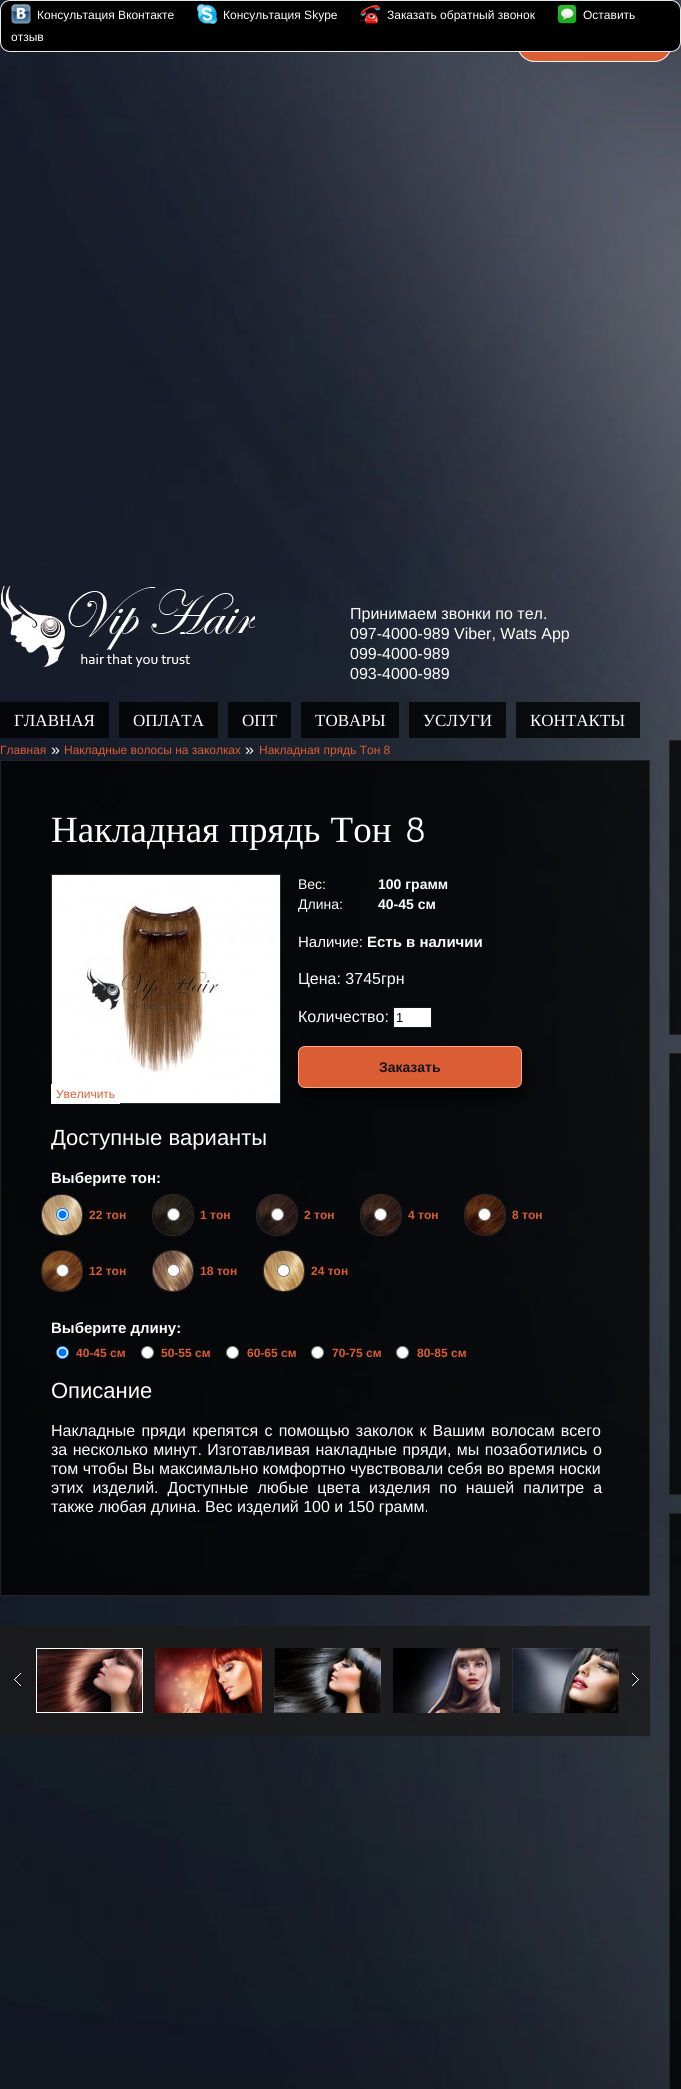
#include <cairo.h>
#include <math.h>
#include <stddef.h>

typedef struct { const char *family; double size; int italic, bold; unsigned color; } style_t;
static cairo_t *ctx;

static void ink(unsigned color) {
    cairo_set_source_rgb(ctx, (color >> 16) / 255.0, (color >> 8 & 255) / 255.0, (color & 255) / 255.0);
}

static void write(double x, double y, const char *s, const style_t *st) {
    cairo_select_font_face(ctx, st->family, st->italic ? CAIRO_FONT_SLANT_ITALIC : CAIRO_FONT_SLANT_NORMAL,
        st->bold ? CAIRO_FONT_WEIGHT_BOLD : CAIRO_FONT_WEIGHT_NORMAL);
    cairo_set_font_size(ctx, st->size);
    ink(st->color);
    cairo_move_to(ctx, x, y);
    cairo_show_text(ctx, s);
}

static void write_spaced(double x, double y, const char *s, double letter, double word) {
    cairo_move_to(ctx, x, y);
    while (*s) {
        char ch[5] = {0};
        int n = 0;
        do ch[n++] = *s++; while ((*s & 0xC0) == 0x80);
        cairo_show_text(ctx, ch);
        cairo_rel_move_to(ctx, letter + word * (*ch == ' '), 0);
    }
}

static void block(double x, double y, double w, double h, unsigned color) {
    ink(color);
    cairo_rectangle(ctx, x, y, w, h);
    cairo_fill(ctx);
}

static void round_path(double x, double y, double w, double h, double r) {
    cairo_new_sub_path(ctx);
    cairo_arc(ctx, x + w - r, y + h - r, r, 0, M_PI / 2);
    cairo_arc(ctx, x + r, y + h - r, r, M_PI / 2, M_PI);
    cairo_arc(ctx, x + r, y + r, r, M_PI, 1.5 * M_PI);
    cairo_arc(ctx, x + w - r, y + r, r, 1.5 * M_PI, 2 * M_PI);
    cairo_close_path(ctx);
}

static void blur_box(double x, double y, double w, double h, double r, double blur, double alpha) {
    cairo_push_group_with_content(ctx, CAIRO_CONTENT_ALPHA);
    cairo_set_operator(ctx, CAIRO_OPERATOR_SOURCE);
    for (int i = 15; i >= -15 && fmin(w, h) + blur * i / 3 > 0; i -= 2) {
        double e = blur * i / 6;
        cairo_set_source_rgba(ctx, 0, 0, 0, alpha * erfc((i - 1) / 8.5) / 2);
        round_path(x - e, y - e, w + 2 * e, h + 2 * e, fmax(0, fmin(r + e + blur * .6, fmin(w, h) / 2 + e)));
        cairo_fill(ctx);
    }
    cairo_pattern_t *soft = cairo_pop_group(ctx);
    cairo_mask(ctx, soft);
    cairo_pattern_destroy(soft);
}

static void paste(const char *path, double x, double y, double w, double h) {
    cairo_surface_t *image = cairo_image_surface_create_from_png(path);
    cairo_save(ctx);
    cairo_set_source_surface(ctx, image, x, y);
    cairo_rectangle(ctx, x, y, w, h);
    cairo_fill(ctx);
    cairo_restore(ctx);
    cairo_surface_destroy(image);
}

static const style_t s1 = {"Liberation Sans", 12, 0, 0, 0xffffff};
static const style_t s2 = {"Liberation Sans", 16, 0, 0, 0xffffff};
static const style_t s3 = {"Liberation Serif", 17, 0, 0, 0xffffff};
static const style_t s4 = {"Liberation Sans", 12, 0, 0, 0xdb5d34};
static const style_t s5 = {"Antic Slab", 37, 0, 0, 0xffffff};
static const style_t s6 = {"Liberation Sans", 14, 0, 0, 0xffffff};
static const style_t s7 = {"Liberation Sans", 14, 0, 1, 0xffffff};
static const style_t s8 = {"Liberation Sans", 15, 0, 0, 0xffffff};
static const style_t s9 = {"Liberation Sans", 15, 0, 1, 0xffffff};
static const style_t s10 = {"Liberation Sans", 13, 0, 0, 0x000000};
static const style_t s11 = {"Liberation Sans", 14, 0, 1, 0x141414};
static const style_t s12 = {"Liberation Sans", 22, 0, 0, 0xffffff};
static const style_t s13 = {"Liberation Sans", 12, 0, 1, 0xdb5d34};

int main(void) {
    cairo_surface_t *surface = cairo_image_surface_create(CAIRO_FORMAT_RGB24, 681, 2089);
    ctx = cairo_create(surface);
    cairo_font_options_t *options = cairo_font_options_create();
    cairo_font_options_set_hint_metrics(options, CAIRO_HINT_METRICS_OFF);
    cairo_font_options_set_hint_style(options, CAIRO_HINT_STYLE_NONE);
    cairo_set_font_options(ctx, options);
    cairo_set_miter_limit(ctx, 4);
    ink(0xffffff);
    cairo_paint(ctx);
    paste("pic1.png", 0, 0, 681, 2089);
    ink(0xdb5d34);
    round_path(517.5, 6.5, 154, 55, 17.5);
    cairo_fill_preserve(ctx);
    ink(0xffffff);
    cairo_set_line_width(ctx, 1);
    cairo_stroke(ctx);
    ink(0x000000);
    round_path(0.5, 0.5, 680, 51, 9.5);
    cairo_fill_preserve(ctx);
    ink(0xe9e9e9);
    cairo_stroke(ctx);
    paste("pic2.png", 11, 4, 20, 20);
    write(37, 19, "Консультация Вконтакте", &s1);
    paste("pic3.png", 197, 4, 20, 20);
    write(223, 19, "Консультация Skype", &s1);
    paste("pic4.png", 360, 5, 20, 19);
    write(387, 19, "Заказать обратный звонок", &s1);
    paste("pic5.png", 557, 4, 20, 20);
    write(583, 19, "Оставить", &s1);
    write(11, 41, "отзыв", &s1);
    paste("pic6.png", 0, 586, 255, 81);
    write(350, 619, "Принимаем звонки по тел.", &s2);
    write(350, 639, "097-4000-989 Viber, Wats App", &s2);
    write(350, 659, "099-4000-989", &s2);
    write(350, 679, "093-4000-989", &s2);
    cairo_set_source_rgba(ctx, 0, 0, 0, 0.78);
    cairo_rectangle(ctx, 0, 702, 109, 36);
    cairo_fill(ctx);
    write(14, 726, "ГЛАВНАЯ", &s3);
    cairo_set_source_rgba(ctx, 0, 0, 0, 0.78);
    cairo_rectangle(ctx, 119, 702, 99, 36);
    cairo_fill(ctx);
    write(133, 726, "ОПЛАТА", &s3);
    cairo_set_source_rgba(ctx, 0, 0, 0, 0.78);
    cairo_rectangle(ctx, 228, 702, 63, 36);
    cairo_fill(ctx);
    write(242, 726, "ОПТ", &s3);
    cairo_set_source_rgba(ctx, 0, 0, 0, 0.78);
    cairo_rectangle(ctx, 301, 702, 98, 36);
    cairo_fill(ctx);
    write(315, 726, "ТОВАРЫ", &s3);
    cairo_set_source_rgba(ctx, 0, 0, 0, 0.78);
    cairo_rectangle(ctx, 409, 702, 97, 36);
    cairo_fill(ctx);
    write(423, 726, "УСЛУГИ", &s3);
    cairo_set_source_rgba(ctx, 0, 0, 0, 0.78);
    cairo_rectangle(ctx, 516, 702, 124, 36);
    cairo_fill(ctx);
    write(530, 726, "КОНТАКТЫ", &s3);
    write(0, 754, "Главная", &s4);
    write(51, 755, "»", &s2);
    write(64, 754, "Накладные волосы на заколках", &s4);
    write(245, 755, "»", &s2);
    write(259, 754, "Накладная прядь Тон 8", &s4);
    cairo_set_source_rgba(ctx, 0, 0, 0, 0.78);
    cairo_rectangle(ctx, 669.5, 740.5, 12, 294);
    cairo_fill_preserve(ctx);
    ink(0x222222);
    cairo_stroke(ctx);
    cairo_set_source_rgba(ctx, 0, 0, 0, 0.78);
    cairo_rectangle(ctx, 669.5, 1053.5, 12, 441);
    cairo_fill_preserve(ctx);
    ink(0x222222);
    cairo_stroke(ctx);
    cairo_set_source_rgba(ctx, 0, 0, 0, 0.78);
    cairo_rectangle(ctx, 669.5, 1513.5, 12, 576);
    cairo_fill_preserve(ctx);
    ink(0x222222);
    cairo_stroke(ctx);
    cairo_set_source_rgba(ctx, 0, 0, 0, 0.78);
    cairo_rectangle(ctx, 0.5, 760.5, 649, 835);
    cairo_fill_preserve(ctx);
    ink(0x222222);
    cairo_stroke(ctx);
    cairo_select_font_face(ctx, "Liberation Serif", CAIRO_FONT_SLANT_NORMAL, CAIRO_FONT_WEIGHT_NORMAL);
    cairo_set_font_size(ctx, 37);
    ink(0xffffff);
    write_spaced(51, 842, "Накладная прядь Тон", 0, 1);
    write(404, 842, "8", &s5);
    write(298, 889, "Вес:", &s6);
    write(378, 889, "100 грамм", &s7);
    write(298, 909, "Длина:", &s6);
    write(378, 909, "40-45 см", &s7);
    write(298, 947, "Наличие:", &s8);
    write(367, 947, "Есть в наличии", &s9);
    write(298, 984, "Цена: 3745грн", &s2);
    write(298, 1022, "Количество:", &s2);
    cairo_rectangle(ctx, 393.5, 1007.5, 38, 20);
    cairo_fill_preserve(ctx);
    ink(0x141414);
    cairo_stroke(ctx);
    write(396, 1022, "1", &s10);
    ink(0x020202);
    blur_box(298, 1056, 224, 42, 7, 7.5, 1);
    ink(0xdb5d34);
    round_path(298.5, 1046.5, 223, 41, 6.5);
    cairo_fill_preserve(ctx);
    ink(0xffa588);
    cairo_stroke(ctx);
    write(379, 1072, "Заказать", &s11);
    cairo_rectangle(ctx, 51.5, 874.5, 229, 229);
    ink(0x2a2a2a);
    cairo_stroke(ctx);
    paste("pic7.png", 52, 875, 228, 228);
    block(51, 1084, 69, 20, 0xffffff);
    write(56, 1098, "Увеличить", &s4);
    write(51, 1145, "Доступные варианты", &s12);
    write(51, 1183, "Выберите тон:", &s9);
    round_path(41.5, 1194.5, 41, 41, 19.5);
    ink(0x2a2a2a);
    cairo_stroke(ctx);
    paste("pic8.png", 42, 1195, 40, 40);
    ink(0xffffff);
    cairo_arc(ctx, 62.5, 1214.5, 6, 0, 2 * M_PI);
    cairo_fill_preserve(ctx);
    ink(0x0075ff);
    cairo_stroke(ctx);
    cairo_arc(ctx, 62.5, 1214.5, 4, 0, 2 * M_PI);
    cairo_fill(ctx);
    write(89, 1219, "22 тон", &s13);
    round_path(152.5, 1194.5, 41, 41, 19.5);
    ink(0x2a2a2a);
    cairo_stroke(ctx);
    paste("pic9.png", 153, 1195, 40, 40);
    ink(0xffffff);
    cairo_arc(ctx, 173.5, 1214.5, 6, 0, 2 * M_PI);
    cairo_fill_preserve(ctx);
    ink(0x767676);
    cairo_stroke(ctx);
    write(200, 1219, "1 тон", &s13);
    round_path(256.5, 1194.5, 41, 41, 19.5);
    ink(0x2a2a2a);
    cairo_stroke(ctx);
    paste("pic10.png", 257, 1195, 40, 40);
    ink(0xffffff);
    cairo_arc(ctx, 277.5, 1214.5, 6, 0, 2 * M_PI);
    cairo_fill_preserve(ctx);
    ink(0x767676);
    cairo_stroke(ctx);
    write(304, 1219, "2 тон", &s13);
    round_path(360.5, 1194.5, 41, 41, 19.5);
    ink(0x2a2a2a);
    cairo_stroke(ctx);
    paste("pic11.png", 361, 1195, 40, 40);
    ink(0xffffff);
    cairo_arc(ctx, 380.5, 1214.5, 6, 0, 2 * M_PI);
    cairo_fill_preserve(ctx);
    ink(0x767676);
    cairo_stroke(ctx);
    write(408, 1219, "4 тон", &s13);
    round_path(464.5, 1194.5, 41, 41, 19.5);
    ink(0x2a2a2a);
    cairo_stroke(ctx);
    paste("pic12.png", 465, 1195, 40, 40);
    ink(0xffffff);
    cairo_arc(ctx, 484.5, 1214.5, 6, 0, 2 * M_PI);
    cairo_fill_preserve(ctx);
    ink(0x767676);
    cairo_stroke(ctx);
    write(512, 1219, "8 тон", &s13);
    round_path(41.5, 1250.5, 41, 41, 19.5);
    ink(0x2a2a2a);
    cairo_stroke(ctx);
    paste("pic13.png", 42, 1251, 40, 40);
    ink(0xffffff);
    cairo_arc(ctx, 62.5, 1270.5, 6, 0, 2 * M_PI);
    cairo_fill_preserve(ctx);
    ink(0x767676);
    cairo_stroke(ctx);
    write(89, 1275, "12 тон", &s13);
    round_path(152.5, 1250.5, 41, 41, 19.5);
    ink(0x2a2a2a);
    cairo_stroke(ctx);
    paste("pic14.png", 153, 1251, 40, 40);
    ink(0xffffff);
    cairo_arc(ctx, 173.5, 1270.5, 6, 0, 2 * M_PI);
    cairo_fill_preserve(ctx);
    ink(0x767676);
    cairo_stroke(ctx);
    write(200, 1275, "18 тон", &s13);
    round_path(263.5, 1250.5, 41, 41, 19.5);
    ink(0x2a2a2a);
    cairo_stroke(ctx);
    paste("pic15.png", 264, 1251, 40, 40);
    ink(0xffffff);
    cairo_arc(ctx, 283.5, 1270.5, 6, 0, 2 * M_PI);
    cairo_fill_preserve(ctx);
    ink(0x767676);
    cairo_stroke(ctx);
    write(311, 1275, "24 тон", &s13);
    write(51, 1333, "Выберите длину:", &s9);
    cairo_new_path(ctx);
    cairo_arc(ctx, 62.5, 1352.5, 6, 0, 2 * M_PI);
    cairo_fill_preserve(ctx);
    ink(0x0075ff);
    cairo_stroke(ctx);
    cairo_arc(ctx, 62.5, 1352.5, 4, 0, 2 * M_PI);
    cairo_fill(ctx);
    write(76, 1357, "40-45 см", &s13);
    ink(0xffffff);
    cairo_new_path(ctx);
    cairo_arc(ctx, 147.5, 1352.5, 6, 0, 2 * M_PI);
    cairo_fill_preserve(ctx);
    ink(0x767676);
    cairo_stroke(ctx);
    write(161, 1357, "50-55 см", &s13);
    ink(0xffffff);
    cairo_new_path(ctx);
    cairo_arc(ctx, 232.5, 1352.5, 6, 0, 2 * M_PI);
    cairo_fill_preserve(ctx);
    ink(0x767676);
    cairo_stroke(ctx);
    write(247, 1357, "60-65 см", &s13);
    ink(0xffffff);
    cairo_new_path(ctx);
    cairo_arc(ctx, 317.5, 1352.5, 6, 0, 2 * M_PI);
    cairo_fill_preserve(ctx);
    ink(0x767676);
    cairo_stroke(ctx);
    write(332, 1357, "70-75 см", &s13);
    ink(0xffffff);
    cairo_new_path(ctx);
    cairo_arc(ctx, 402.5, 1352.5, 6, 0, 2 * M_PI);
    cairo_fill_preserve(ctx);
    ink(0x767676);
    cairo_stroke(ctx);
    write(417, 1357, "80-85 см", &s13);
    write(51, 1398, "Описание", &s12);
    cairo_set_font_size(ctx, 16);
    write_spaced(51, 1436, "Накладные пряди крепятся с помощью заколок к Вашим волосам всего", 0, 1.75);
    write_spaced(51, 1455, "за несколько минут. Изготавливая накладные пряди, мы позаботились о", 0, 1);
    write(51, 1474, "том чтобы Вы максимально комфортно чувствовали себя во время носки", &s2);
    write_spaced(51, 1493, "этих изделий. Доступные любые цвета изделия по нашей палитре а", 0, 4.5);
    write(51, 1512, "также любая длина. Вес изделий 100 и 150 грамм.", &s2);
    cairo_set_source_rgba(ctx, 0.106, 0.102, 0.102, 0.78);
    cairo_rectangle(ctx, 0, 1626, 650, 110);
    cairo_fill(ctx);
    paste("pic16.png", 37, 1649, 105, 63);
    cairo_rectangle(ctx, 36.5, 1648.5, 106, 64);
    ink(0xffffff);
    cairo_stroke(ctx);
    paste("pic17.png", 155, 1648, 107, 65);
    paste("pic18.png", 274, 1648, 107, 65);
    paste("pic19.png", 393, 1648, 107, 65);
    paste("pic20.png", 512, 1648, 107, 65);
    paste("pic21.png", 14, 1673, 7, 13);
    paste("pic22.png", 632, 1673, 7, 13);
    cairo_surface_write_to_png(surface, "screenshot.png");
    cairo_font_options_destroy(options);
    cairo_destroy(ctx);
    cairo_surface_destroy(surface);
    return 0;
}
